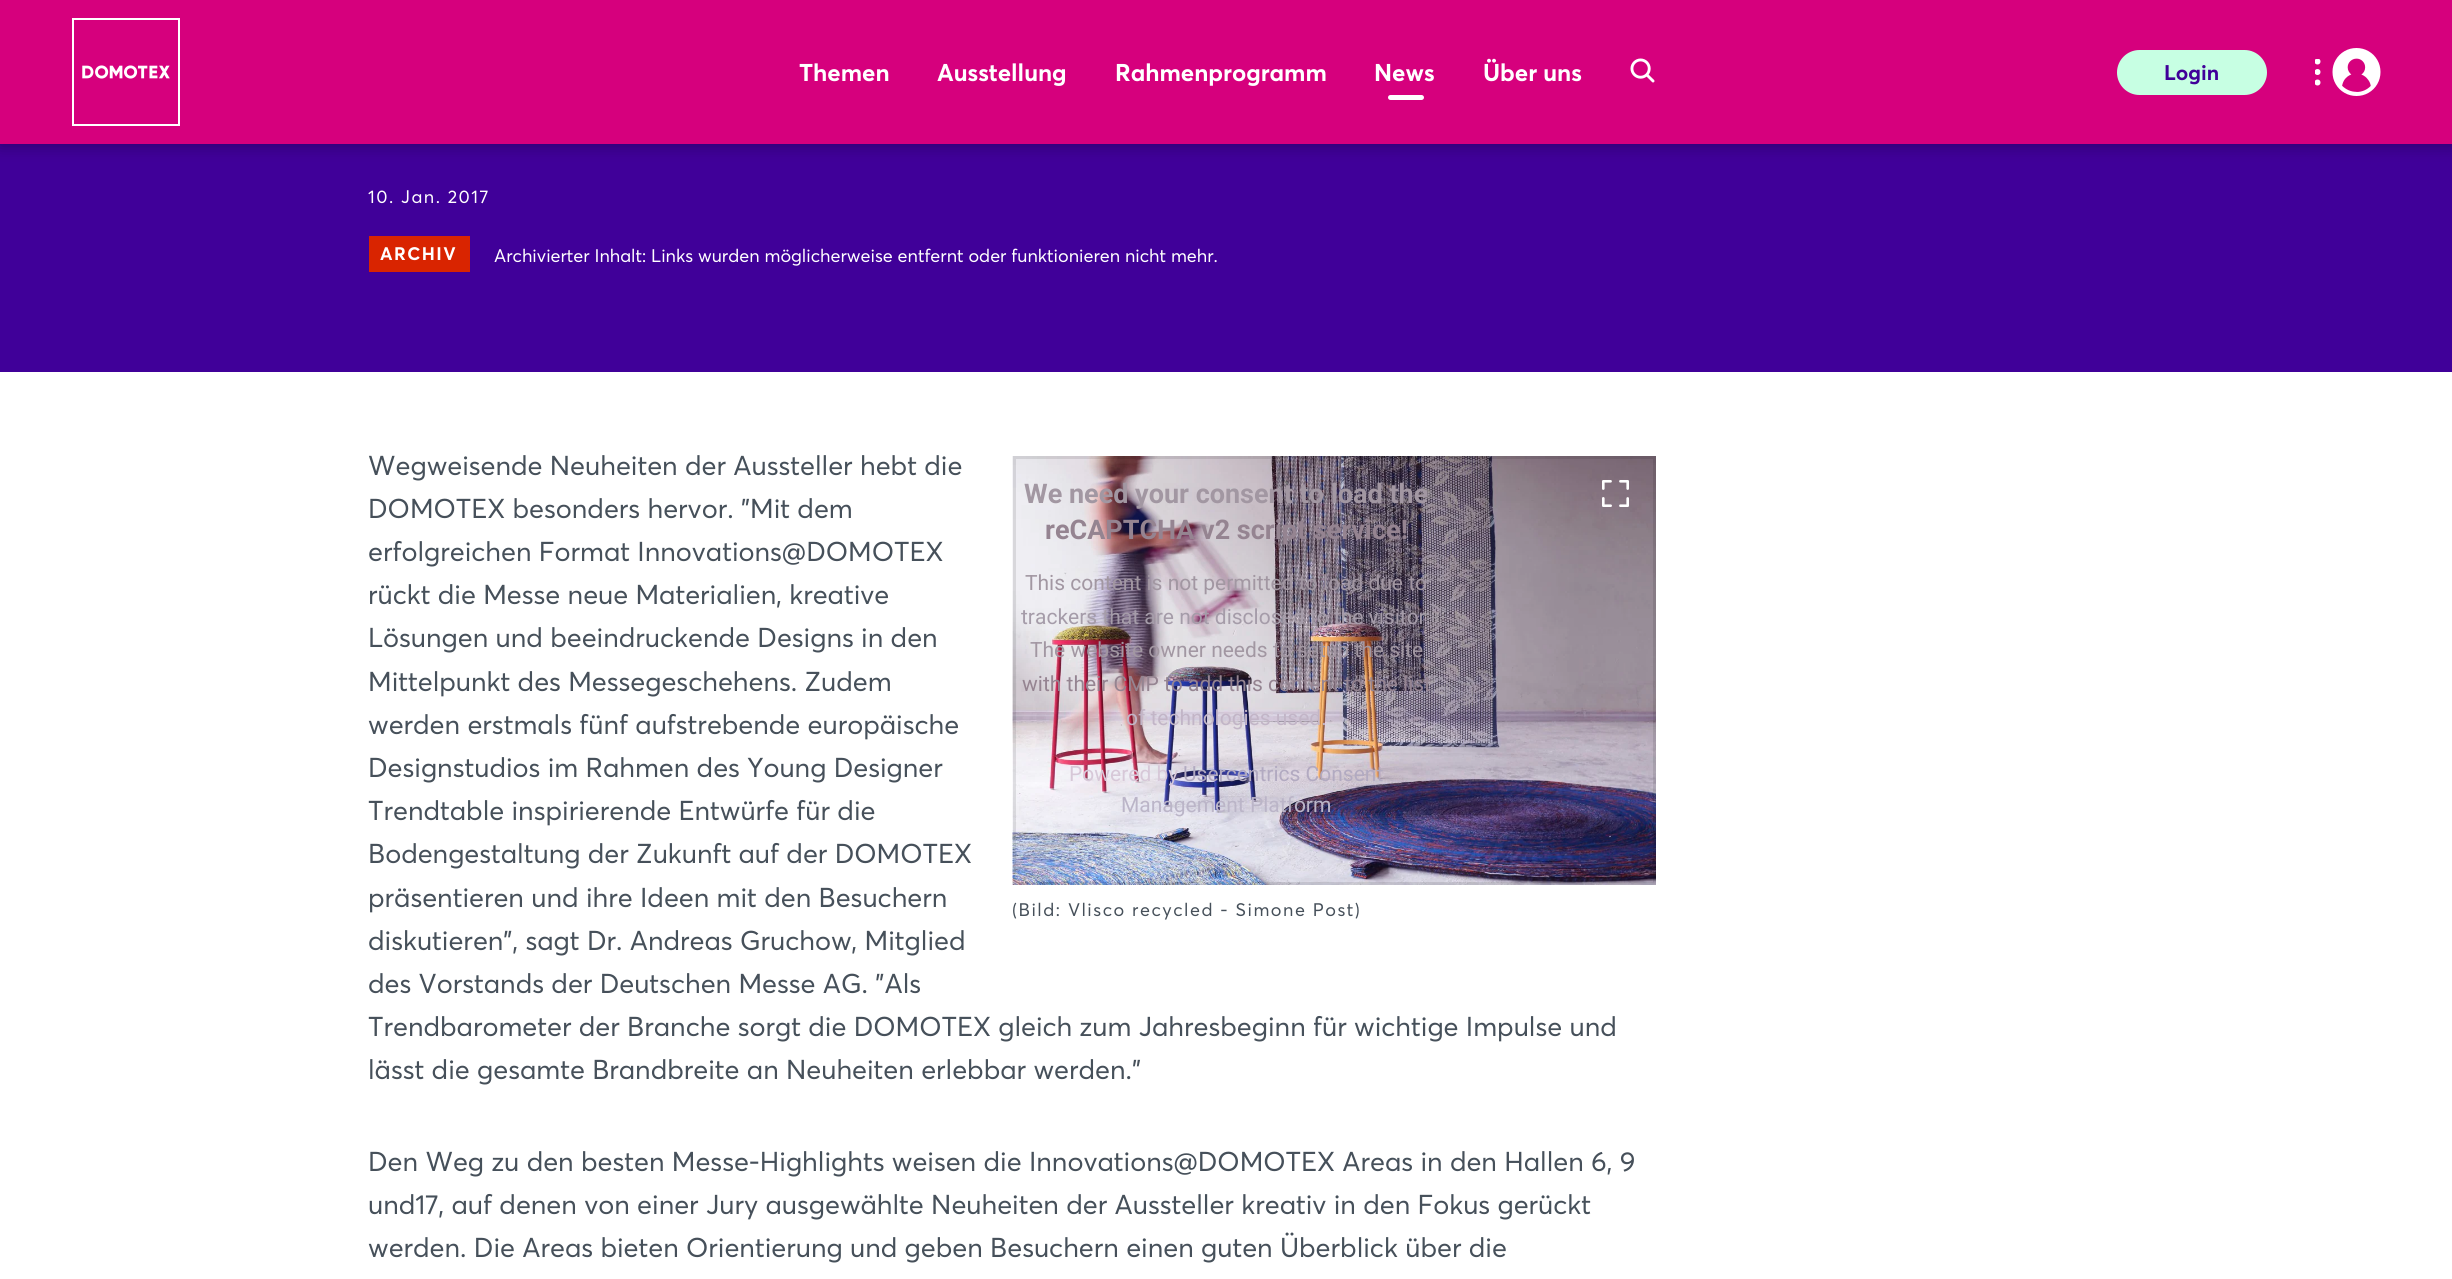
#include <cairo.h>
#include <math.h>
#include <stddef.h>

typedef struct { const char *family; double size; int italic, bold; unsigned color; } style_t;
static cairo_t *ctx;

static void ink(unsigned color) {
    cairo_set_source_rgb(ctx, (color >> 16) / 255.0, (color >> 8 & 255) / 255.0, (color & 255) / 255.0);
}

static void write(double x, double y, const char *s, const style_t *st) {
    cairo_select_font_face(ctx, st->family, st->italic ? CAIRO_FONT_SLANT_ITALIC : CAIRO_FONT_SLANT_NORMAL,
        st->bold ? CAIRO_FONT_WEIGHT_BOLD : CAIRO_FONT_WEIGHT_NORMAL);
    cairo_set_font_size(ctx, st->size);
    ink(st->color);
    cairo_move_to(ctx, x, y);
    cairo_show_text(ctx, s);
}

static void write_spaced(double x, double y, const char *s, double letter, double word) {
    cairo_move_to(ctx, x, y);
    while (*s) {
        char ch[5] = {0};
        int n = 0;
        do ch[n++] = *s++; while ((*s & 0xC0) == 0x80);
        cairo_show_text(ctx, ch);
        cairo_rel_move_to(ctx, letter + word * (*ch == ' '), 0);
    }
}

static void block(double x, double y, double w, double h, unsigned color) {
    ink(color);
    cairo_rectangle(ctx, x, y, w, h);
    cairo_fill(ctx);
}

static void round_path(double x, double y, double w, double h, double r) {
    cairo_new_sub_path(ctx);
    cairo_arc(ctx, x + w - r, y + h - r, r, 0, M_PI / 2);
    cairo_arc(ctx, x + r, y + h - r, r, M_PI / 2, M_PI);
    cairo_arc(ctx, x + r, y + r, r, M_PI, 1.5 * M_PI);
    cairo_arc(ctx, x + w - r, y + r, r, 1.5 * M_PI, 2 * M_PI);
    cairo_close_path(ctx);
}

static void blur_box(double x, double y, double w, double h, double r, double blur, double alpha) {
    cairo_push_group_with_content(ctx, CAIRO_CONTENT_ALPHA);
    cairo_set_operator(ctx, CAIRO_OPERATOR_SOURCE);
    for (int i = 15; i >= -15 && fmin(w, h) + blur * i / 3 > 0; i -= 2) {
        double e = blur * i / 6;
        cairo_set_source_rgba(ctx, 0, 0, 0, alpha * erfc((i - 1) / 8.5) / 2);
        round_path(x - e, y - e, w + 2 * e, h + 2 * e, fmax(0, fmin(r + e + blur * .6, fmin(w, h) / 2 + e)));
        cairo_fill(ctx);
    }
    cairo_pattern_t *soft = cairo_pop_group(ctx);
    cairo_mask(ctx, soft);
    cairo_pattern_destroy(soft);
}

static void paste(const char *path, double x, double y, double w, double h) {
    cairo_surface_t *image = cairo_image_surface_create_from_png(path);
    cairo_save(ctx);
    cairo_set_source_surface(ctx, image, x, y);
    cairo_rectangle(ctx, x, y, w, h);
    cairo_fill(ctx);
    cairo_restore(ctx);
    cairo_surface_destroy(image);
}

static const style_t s1 = {"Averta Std", 24, 0, 1, 0xffffff};
static const style_t s2 = {"Averta Std", 21, 0, 1, 0x400099};
static const style_t s3 = {"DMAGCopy", 18, 0, 0, 0xffffff};
static const style_t s4 = {"DMAGCopy", 27, 0, 0, 0x46505a};
static const style_t s5 = {"Roboto", 27, 0, 1, 0xa297a2};
static const style_t s6 = {"Roboto", 27, 0, 1, 0x958491};
static const style_t s7 = {"Roboto", 21, 0, 0, 0xa297a2};
static const style_t s8 = {"Roboto", 21, 0, 0, 0xa59ca9};
static const style_t s9 = {"Roboto", 21, 0, 0, 0x958491};
static const style_t s10 = {"Roboto", 21, 0, 0, 0xc2b5c7};
static const style_t s11 = {"Roboto", 21, 0, 0, 0xd7c8d8};
static const style_t s12 = {"Roboto", 21, 0, 0, 0xb2aac1};
static const style_t s13 = {"Roboto", 21, 0, 0, 0xbbb5c8};

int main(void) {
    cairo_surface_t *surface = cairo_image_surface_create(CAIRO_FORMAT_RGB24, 2452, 1279);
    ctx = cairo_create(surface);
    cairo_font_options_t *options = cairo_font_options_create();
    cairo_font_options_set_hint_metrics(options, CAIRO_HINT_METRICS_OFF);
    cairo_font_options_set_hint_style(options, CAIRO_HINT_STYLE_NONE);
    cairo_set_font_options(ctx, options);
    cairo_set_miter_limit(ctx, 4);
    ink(0xffffff);
    cairo_paint(ctx);
    block(0, 144, 2452, 228, 0x400099);
    ink(0x000000);
    blur_box(0, -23, 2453, 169, 0, 7.5, 0.3);
    block(0, 0, 2452, 144, 0xd6007d);
    paste("pic1.png", 72, 18, 108, 108);
    write(799, 81, "Themen", &s1);
    write(937, 81, "Ausstellung", &s1);
    write(1115, 81, "Rahmenprogramm", &s1);
    write(1374, 81, "News", &s1);
    round_path(1388, 95, 36, 5, 2.5);
    cairo_fill(ctx);
    write(1483, 81, "Über uns", &s1);
    paste("pic2.png", 1630, 58, 25, 25);
    ink(0xc7ffe3);
    round_path(2118.5, 51.5, 147, 42, 21);
    cairo_fill_preserve(ctx);
    cairo_set_line_width(ctx, 3);
    cairo_stroke(ctx);
    write(2164, 80, "Login", &s2);
    cairo_save(ctx);
    cairo_rectangle(ctx, 2315, 59, 6, 27);
    cairo_clip(ctx);
    ink(0xffffff);
    cairo_arc(ctx, 2317.5, 61.5, 3, 0, 2 * M_PI);
    cairo_fill(ctx);
    cairo_arc(ctx, 2317.5, 72, 3, 0, 2 * M_PI);
    cairo_fill(ctx);
    cairo_arc(ctx, 2317.5, 82.5, 3, 0, 2 * M_PI);
    cairo_fill(ctx);
    cairo_restore(ctx);
    paste("pic3.png", 2332, 48, 49, 48);
    cairo_select_font_face(ctx, "DMAGCopy", CAIRO_FONT_SLANT_NORMAL, CAIRO_FONT_WEIGHT_NORMAL);
    cairo_set_font_size(ctx, 18);
    ink(0xffffff);
    write_spaced(368, 203, "10. Jan. 2017", 1.5, 0);
    block(369, 236, 101, 36, 0xd92400);
    cairo_select_font_face(ctx, "Averta Std", CAIRO_FONT_SLANT_NORMAL, CAIRO_FONT_WEIGHT_BOLD);
    ink(0xffffff);
    write_spaced(380, 260, "ARCHIV", 1.5, 0);
    write(494, 262, "Archivierter Inhalt: Links wurden möglicherweise entfernt oder funktionieren nicht mehr.", &s3);
    write(368, 475, "Wegweisende Neuheiten der Aussteller hebt die", &s4);
    write(368, 518, "DOMOTEX besonders hervor. \"Mit dem", &s4);
    write(368, 561, "erfolgreichen Format Innovations@DOMOTEX", &s4);
    write(368, 604, "rückt die Messe neue Materialien, kreative", &s4);
    write(368, 647, "Lösungen und beeindruckende Designs in den", &s4);
    write(368, 691, "Mittelpunkt des Messegeschehens. Zudem", &s4);
    write(368, 734, "werden erstmals fünf aufstrebende europäische", &s4);
    write(368, 777, "Designstudios im Rahmen des Young Designer", &s4);
    write(368, 820, "Trendtable inspirierende Entwürfe für die", &s4);
    write(368, 863, "Bodengestaltung der Zukunft auf der DOMOTEX", &s4);
    write(368, 907, "präsentieren und ihre Ideen mit den Besuchern", &s4);
    write(368, 950, "diskutieren\", sagt Dr. Andreas Gruchow, Mitglied", &s4);
    write(368, 993, "des Vorstands der Deutschen Messe AG. \"Als", &s4);
    write(368, 1036, "Trendbarometer der Branche sorgt die DOMOTEX gleich zum Jahresbeginn für wichtige Impulse und", &s4);
    write(368, 1079, "lässt die gesamte Brandbreite an Neuheiten erlebbar werden.\"", &s4);
    paste("pic4.png", 1012, 456, 644, 429);
    paste("pic5.png", 1602, 480, 27, 27);
    cairo_rectangle(ctx, 1014.5, 457.5, 640, 426);
    cairo_set_source_rgba(ctx, 0, 0, 0, 0.1);
    cairo_stroke(ctx);
    cairo_set_font_size(ctx, 18);
    ink(0x46505a);
    write_spaced(1012, 916, "(Bild: Vlisco recycled - Simone Post)", 1.5, 0);
    write(368, 1171, "Den Weg zu den besten Messe-Highlights weisen die Innovations@DOMOTEX Areas in den Hallen 6, 9", &s4);
    write(368, 1214, "und17, auf denen von einer Jury ausgewählte Neuheiten der Aussteller kreativ in den Fokus gerückt", &s4);
    write(368, 1257, "werden. Die Areas bieten Orientierung und geben Besuchern einen guten Überblick über die", &s4);
    write(1024, 503, "We need your consent to load the", &s5);
    write(1045, 539, "reCAPTCHA v2 script service!", &s6);
    write(1025, 590, "This content is not permitted to load due to", &s7);
    write(1021, 624, "trackers that are not disclosed to the visitor.", &s8);
    write(1030, 657, "The website owner needs to setup the site", &s7);
    write(1022, 691, "with their CMP to add this content to the list", &s9);
    write(1126, 725, "of technologies used.", &s10);
    write(1069, 781, "Powered by", &s11);
    write(1183, 781, "Usercentrics Consent", &s12);
    write(1121, 812, "Management Platform", &s13);
    cairo_surface_write_to_png(surface, "screenshot.png");
    cairo_font_options_destroy(options);
    cairo_destroy(ctx);
    cairo_surface_destroy(surface);
    return 0;
}
